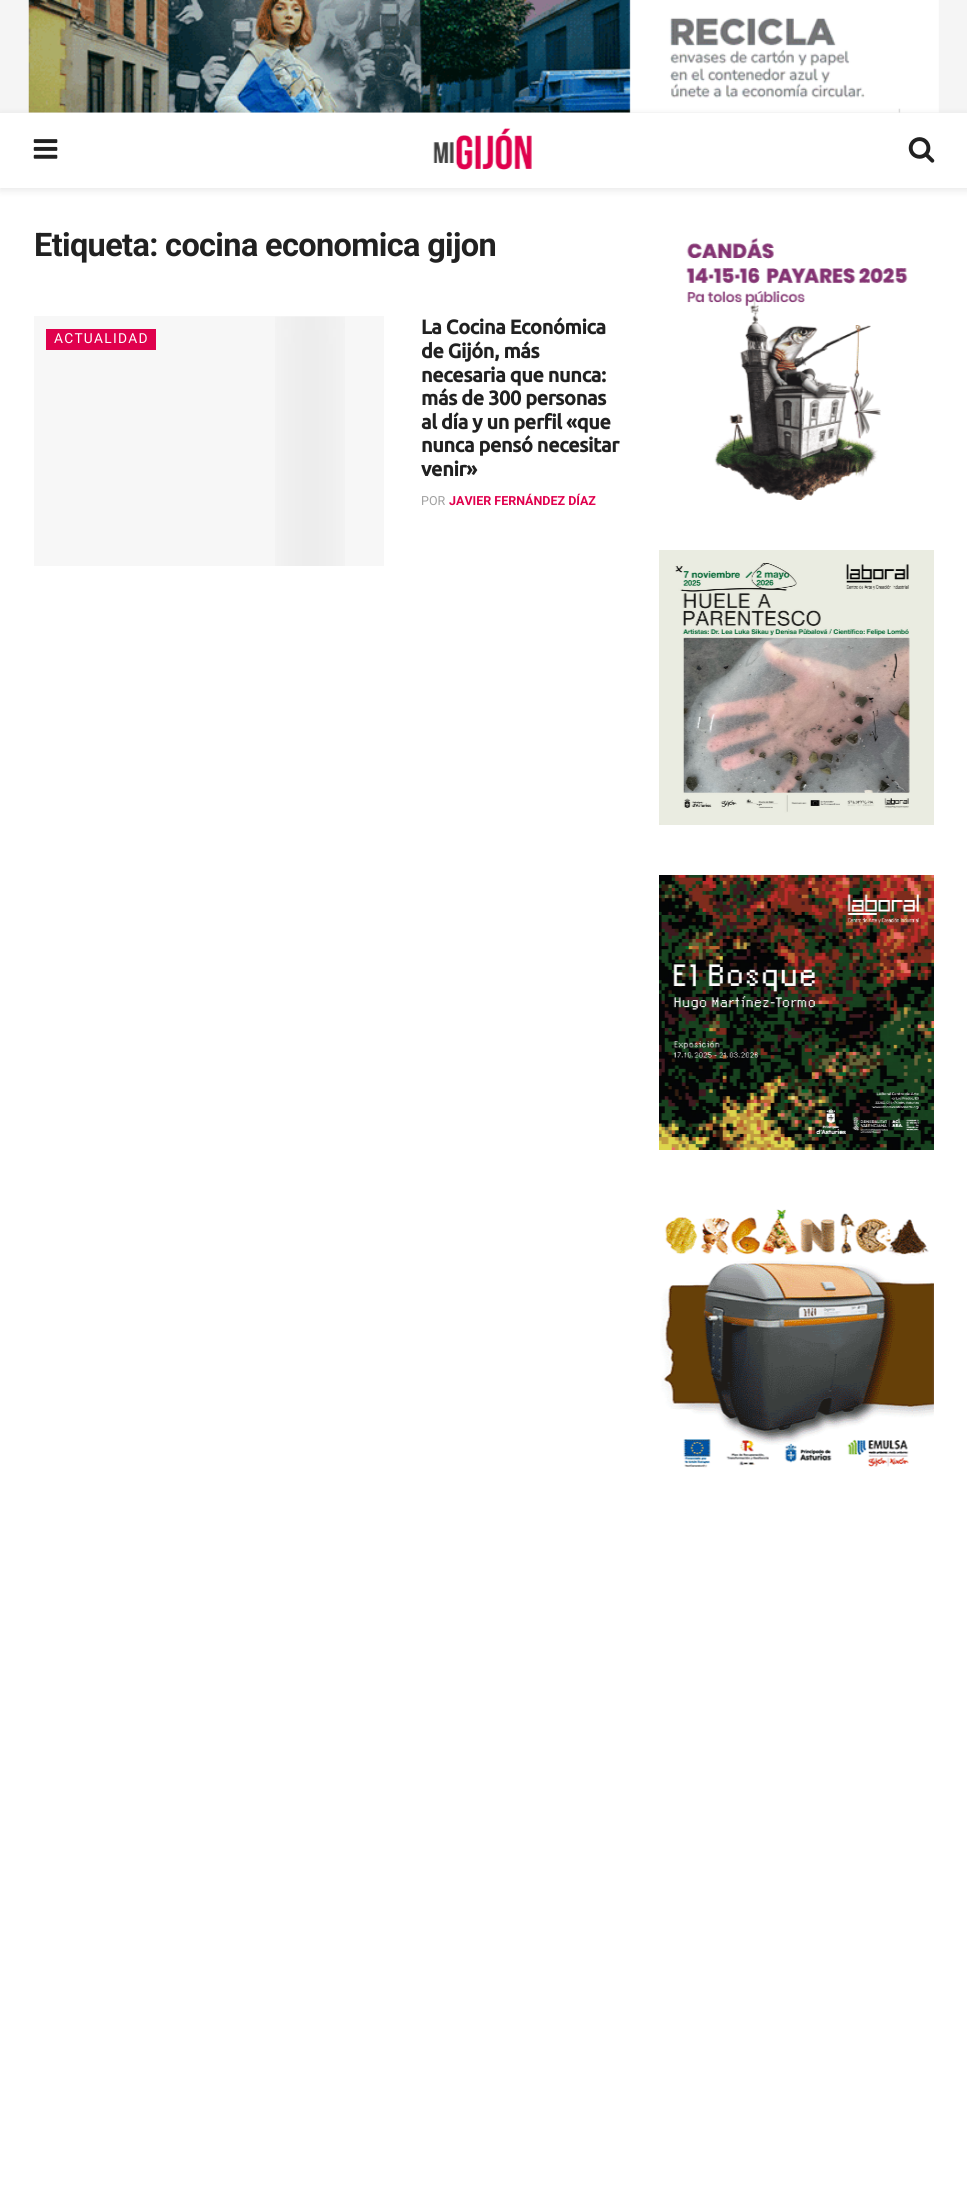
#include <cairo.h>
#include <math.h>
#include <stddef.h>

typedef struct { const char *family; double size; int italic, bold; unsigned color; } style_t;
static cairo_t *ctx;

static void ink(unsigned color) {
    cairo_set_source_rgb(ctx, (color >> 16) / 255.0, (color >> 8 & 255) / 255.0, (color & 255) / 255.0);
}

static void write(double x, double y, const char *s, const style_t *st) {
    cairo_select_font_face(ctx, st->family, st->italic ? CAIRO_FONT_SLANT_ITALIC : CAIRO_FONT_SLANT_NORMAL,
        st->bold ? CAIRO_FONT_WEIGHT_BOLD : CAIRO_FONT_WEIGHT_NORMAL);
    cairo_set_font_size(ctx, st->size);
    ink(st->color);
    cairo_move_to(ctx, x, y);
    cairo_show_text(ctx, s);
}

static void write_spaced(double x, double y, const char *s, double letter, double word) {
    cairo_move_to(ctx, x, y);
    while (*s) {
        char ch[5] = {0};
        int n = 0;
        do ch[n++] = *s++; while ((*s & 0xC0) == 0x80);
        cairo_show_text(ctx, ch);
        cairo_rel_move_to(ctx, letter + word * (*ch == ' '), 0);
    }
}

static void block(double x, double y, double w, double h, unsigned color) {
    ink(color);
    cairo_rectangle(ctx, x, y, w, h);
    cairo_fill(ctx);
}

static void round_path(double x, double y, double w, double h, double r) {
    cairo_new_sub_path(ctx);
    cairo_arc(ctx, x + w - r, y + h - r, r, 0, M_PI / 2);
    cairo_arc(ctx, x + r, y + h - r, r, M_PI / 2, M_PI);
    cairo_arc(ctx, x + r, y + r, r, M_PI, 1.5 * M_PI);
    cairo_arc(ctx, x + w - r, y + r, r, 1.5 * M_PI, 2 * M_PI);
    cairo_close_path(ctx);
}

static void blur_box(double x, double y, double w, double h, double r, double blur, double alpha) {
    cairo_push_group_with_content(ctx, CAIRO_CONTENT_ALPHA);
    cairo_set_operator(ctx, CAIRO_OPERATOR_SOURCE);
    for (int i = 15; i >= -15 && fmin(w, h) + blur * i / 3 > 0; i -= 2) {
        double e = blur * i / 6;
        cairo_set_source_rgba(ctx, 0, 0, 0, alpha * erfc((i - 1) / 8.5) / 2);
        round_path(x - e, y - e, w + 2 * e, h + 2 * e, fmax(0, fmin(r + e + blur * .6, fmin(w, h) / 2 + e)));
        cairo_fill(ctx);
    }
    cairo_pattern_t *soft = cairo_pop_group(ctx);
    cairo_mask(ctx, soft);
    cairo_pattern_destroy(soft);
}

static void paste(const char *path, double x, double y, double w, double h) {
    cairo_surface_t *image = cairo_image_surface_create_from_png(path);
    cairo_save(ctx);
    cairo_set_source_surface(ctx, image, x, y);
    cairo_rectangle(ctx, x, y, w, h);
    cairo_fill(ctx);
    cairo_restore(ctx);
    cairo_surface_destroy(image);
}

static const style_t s1 = {"Roboto", 12.5, 0, 0, 0xa0a0a0};
static const style_t s2 = {"Roboto", 12.5, 0, 1, 0xe0004d};

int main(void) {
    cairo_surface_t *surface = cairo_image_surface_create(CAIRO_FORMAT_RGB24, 967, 2208);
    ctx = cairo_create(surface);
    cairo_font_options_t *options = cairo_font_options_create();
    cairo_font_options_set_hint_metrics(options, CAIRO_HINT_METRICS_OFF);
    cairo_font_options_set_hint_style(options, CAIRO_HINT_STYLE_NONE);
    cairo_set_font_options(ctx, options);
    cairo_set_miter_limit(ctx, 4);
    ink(0xffffff);
    cairo_paint(ctx);
    block(0, 0, 967, 113, 0xf5f5f5);
    paste("pic1.png", 28, 0, 911, 113);
    ink(0x000000);
    blur_box(0, 115, 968, 75, 0, 4, 0.1);
    block(0, 113, 967, 75, 0xffffff);
    paste("pic2.png", 33, 139, 25, 20);
    paste("pic3.png", 433, 128, 99, 42);
    paste("pic4.png", 908, 137, 27, 26);
    cairo_select_font_face(ctx, "Roboto", CAIRO_FONT_SLANT_NORMAL, CAIRO_FONT_WEIGHT_BOLD);
    cairo_set_font_size(ctx, 32.5);
    ink(0x212121);
    write_spaced(34, 256, "Etiqueta: cocina economica gijon", -0.65, 0);
    block(34, 316, 350, 250, 0xf7f7f7);
    paste("pic5.png", 275, 316, 70, 250);
    block(46, 329, 110, 21, 0xe0004d);
    cairo_select_font_face(ctx, "Roboto", CAIRO_FONT_SLANT_NORMAL, CAIRO_FONT_WEIGHT_NORMAL);
    cairo_set_font_size(ctx, 13.75);
    ink(0xffffff);
    write_spaced(54, 343, "ACTUALIDAD", 1.25, 0);
    cairo_select_font_face(ctx, "Ubuntu", CAIRO_FONT_SLANT_NORMAL, CAIRO_FONT_WEIGHT_BOLD);
    cairo_set_font_size(ctx, 20);
    ink(0x212121);
    write_spaced(421, 334, "La Cocina Económica", -0.4, 0);
    write_spaced(421, 358, "de Gijón, más", -0.4, 0);
    write_spaced(421, 382, "necesaria que nunca:", -0.4, 0);
    write_spaced(421, 405, "más de 300 personas", -0.4, 0);
    write_spaced(421, 429, "al día y un perfil «que", -0.4, 0);
    write_spaced(421, 452, "nunca pensó necesitar", -0.4, 0);
    write_spaced(421, 476, "venir»", -0.4, 0);
    write(421, 505, "POR", &s1);
    write(449, 505, "JAVIER FERNÁNDEZ DÍAZ", &s2);
    paste("pic6.png", 686, 237, 222, 263);
    paste("pic7.png", 659, 550, 275, 275);
    paste("pic8.png", 659, 875, 275, 275);
    paste("pic9.png", 660, 1209, 274, 259);
    cairo_surface_write_to_png(surface, "screenshot.png");
    cairo_font_options_destroy(options);
    cairo_destroy(ctx);
    cairo_surface_destroy(surface);
    return 0;
}
